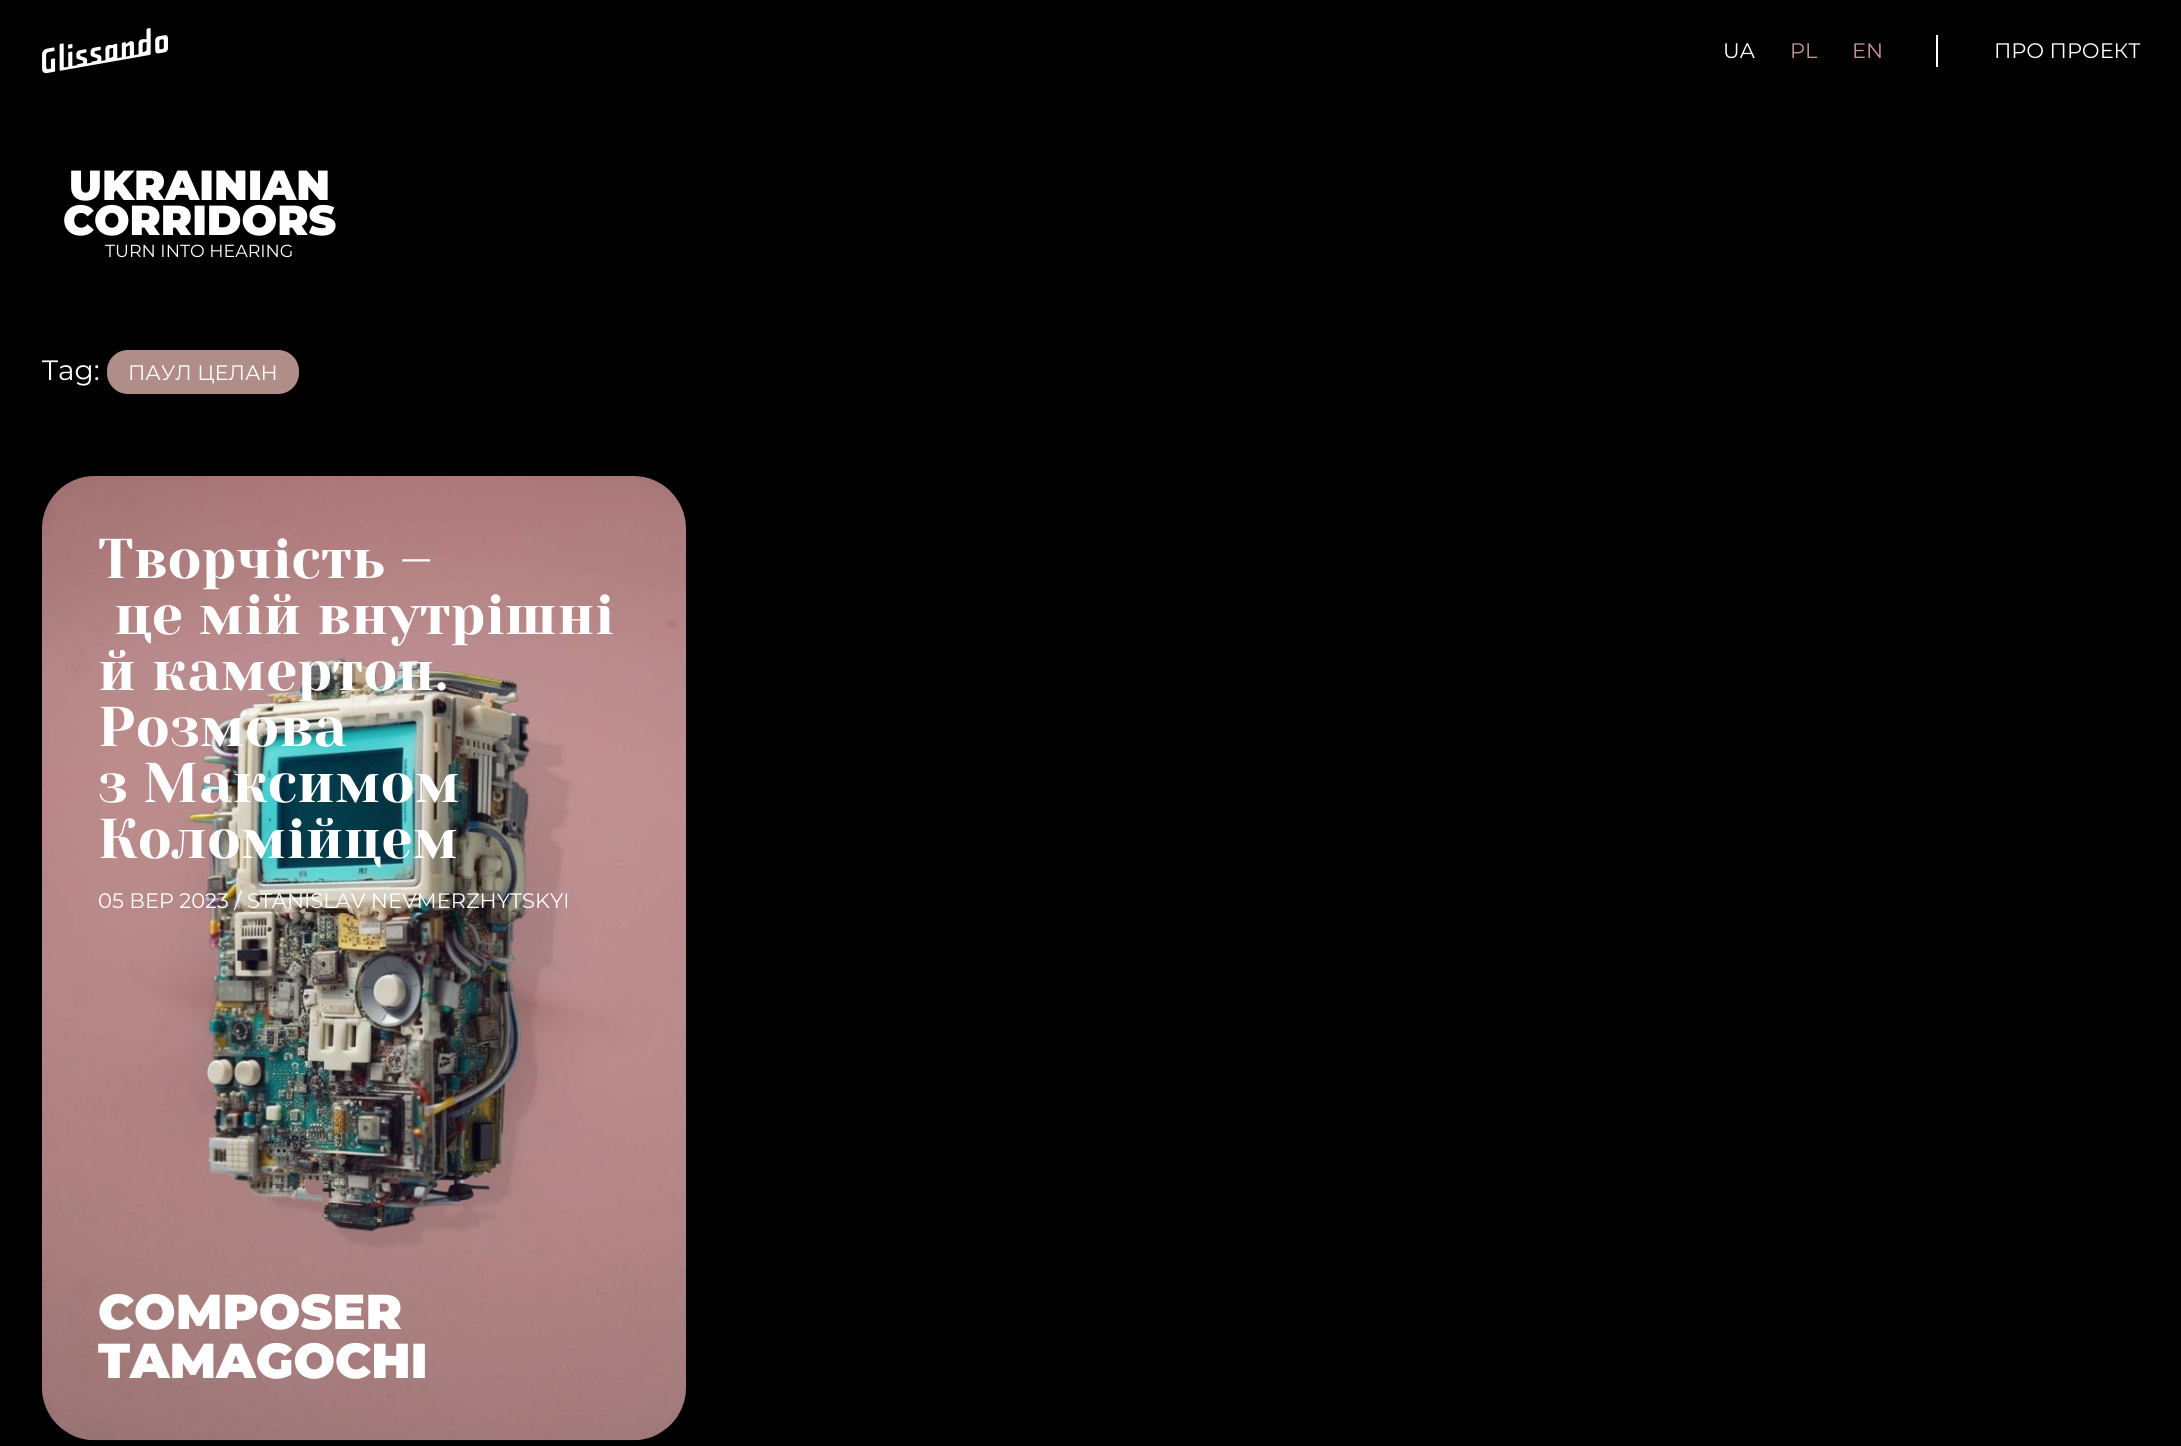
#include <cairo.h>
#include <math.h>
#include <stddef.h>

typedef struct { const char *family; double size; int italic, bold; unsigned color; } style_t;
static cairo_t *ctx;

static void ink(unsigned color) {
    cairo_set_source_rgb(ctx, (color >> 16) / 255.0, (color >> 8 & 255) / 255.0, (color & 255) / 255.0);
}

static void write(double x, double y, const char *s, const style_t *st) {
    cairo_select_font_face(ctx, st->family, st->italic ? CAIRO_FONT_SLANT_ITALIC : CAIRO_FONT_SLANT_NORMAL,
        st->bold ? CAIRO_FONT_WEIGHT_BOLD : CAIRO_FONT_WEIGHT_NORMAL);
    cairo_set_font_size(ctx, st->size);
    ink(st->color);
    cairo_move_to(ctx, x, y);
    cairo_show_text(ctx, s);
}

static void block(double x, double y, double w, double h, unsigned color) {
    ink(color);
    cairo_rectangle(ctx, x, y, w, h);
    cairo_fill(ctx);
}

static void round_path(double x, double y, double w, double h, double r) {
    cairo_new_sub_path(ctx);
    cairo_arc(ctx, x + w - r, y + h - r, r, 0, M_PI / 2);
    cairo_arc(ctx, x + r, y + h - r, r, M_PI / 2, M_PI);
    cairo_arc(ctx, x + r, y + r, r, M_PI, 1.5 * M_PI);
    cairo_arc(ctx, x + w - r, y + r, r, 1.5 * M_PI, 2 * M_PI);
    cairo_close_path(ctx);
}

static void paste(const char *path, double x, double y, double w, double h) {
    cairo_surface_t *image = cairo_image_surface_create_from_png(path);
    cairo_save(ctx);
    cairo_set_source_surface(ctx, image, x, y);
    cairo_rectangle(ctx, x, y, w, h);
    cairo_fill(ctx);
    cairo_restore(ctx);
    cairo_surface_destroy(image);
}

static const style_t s1 = {"Montserrat", 21, 0, 0, 0xffffff};
static const style_t s2 = {"Montserrat", 21, 0, 0, 0xc39390};
static const style_t s3 = {"Montserrat Black", 42, 0, 0, 0xffffff};
static const style_t s4 = {"Montserrat", 17.5, 0, 0, 0xffffff};
static const style_t s5 = {"Montserrat", 28, 0, 0, 0xffffff};
static const style_t s6 = {"Yeseva One", 56, 0, 0, 0xffffff};
static const style_t s7 = {"Montserrat Black", 49, 0, 0, 0xffffff};

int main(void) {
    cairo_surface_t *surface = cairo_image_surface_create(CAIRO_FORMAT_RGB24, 2181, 1446);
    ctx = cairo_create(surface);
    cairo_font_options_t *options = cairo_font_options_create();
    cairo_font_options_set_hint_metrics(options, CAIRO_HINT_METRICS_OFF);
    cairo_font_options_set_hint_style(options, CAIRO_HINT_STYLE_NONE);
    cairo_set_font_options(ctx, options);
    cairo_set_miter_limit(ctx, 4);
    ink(0x000000);
    cairo_paint(ctx);
    paste("pic1.png", 42, 28, 126, 46);
    write(1723, 58, "UA", &s1);
    write(1790, 58, "PL", &s2);
    write(1852, 58, "EN", &s2);
    block(1936, 35, 2, 32, 0xffffff);
    write(1994, 58, "ПРО ПРОЕКТ", &s1);
    write(69, 200, "UKRAINIAN", &s3);
    write(63, 235, "CORRIDORS", &s3);
    write(105, 257, "TURN INTO HEARING", &s4);
    write(42, 380, "Tag:", &s5);
    ink(0xb08d89);
    round_path(107, 350, 192, 44, 21);
    cairo_fill(ctx);
    write(128, 380, "ПАУЛ ЦЕЛАН", &s1);
    paste("pic2.png", 42, 476, 644, 965);
    write(98, 578, "Творчість –", &s6);
    write(114, 634, "це мій внутрішні", &s6);
    write(98, 690, "й камертон.", &s6);
    write(98, 746, "Розмова", &s6);
    write(98, 802, "з Максимом", &s6);
    write(98, 858, "Коломійцем", &s6);
    write(98, 908, "05 ВЕР 2023 / STANISLAV NEVMERZHYTSKYI", &s1);
    write(98, 1329, "COMPOSER", &s7);
    write(98, 1378, "TAMAGOCHI", &s7);
    cairo_surface_write_to_png(surface, "screenshot.png");
    cairo_font_options_destroy(options);
    cairo_destroy(ctx);
    cairo_surface_destroy(surface);
    return 0;
}
